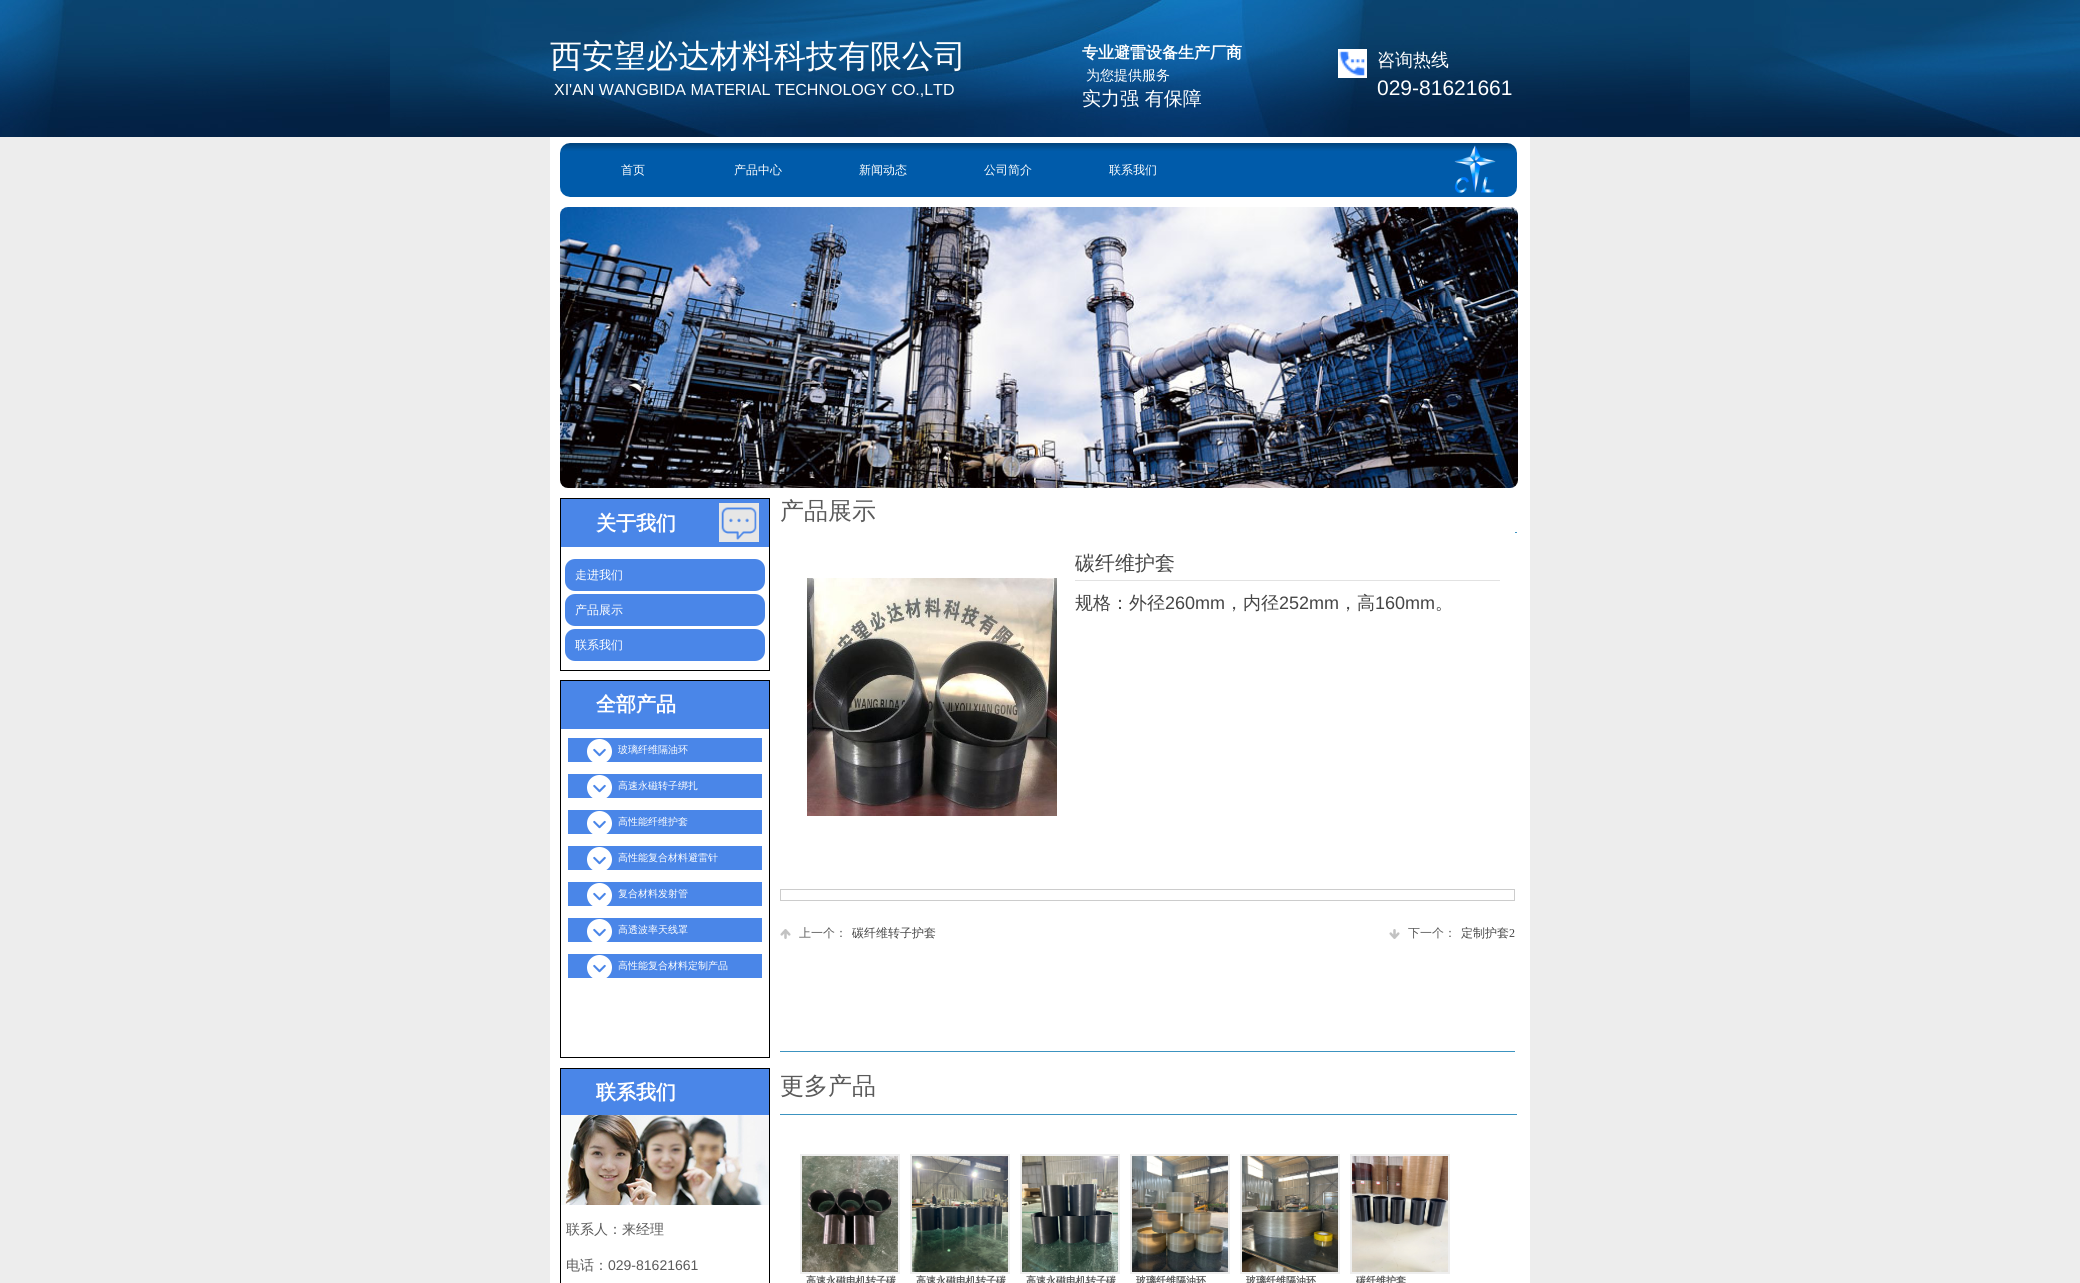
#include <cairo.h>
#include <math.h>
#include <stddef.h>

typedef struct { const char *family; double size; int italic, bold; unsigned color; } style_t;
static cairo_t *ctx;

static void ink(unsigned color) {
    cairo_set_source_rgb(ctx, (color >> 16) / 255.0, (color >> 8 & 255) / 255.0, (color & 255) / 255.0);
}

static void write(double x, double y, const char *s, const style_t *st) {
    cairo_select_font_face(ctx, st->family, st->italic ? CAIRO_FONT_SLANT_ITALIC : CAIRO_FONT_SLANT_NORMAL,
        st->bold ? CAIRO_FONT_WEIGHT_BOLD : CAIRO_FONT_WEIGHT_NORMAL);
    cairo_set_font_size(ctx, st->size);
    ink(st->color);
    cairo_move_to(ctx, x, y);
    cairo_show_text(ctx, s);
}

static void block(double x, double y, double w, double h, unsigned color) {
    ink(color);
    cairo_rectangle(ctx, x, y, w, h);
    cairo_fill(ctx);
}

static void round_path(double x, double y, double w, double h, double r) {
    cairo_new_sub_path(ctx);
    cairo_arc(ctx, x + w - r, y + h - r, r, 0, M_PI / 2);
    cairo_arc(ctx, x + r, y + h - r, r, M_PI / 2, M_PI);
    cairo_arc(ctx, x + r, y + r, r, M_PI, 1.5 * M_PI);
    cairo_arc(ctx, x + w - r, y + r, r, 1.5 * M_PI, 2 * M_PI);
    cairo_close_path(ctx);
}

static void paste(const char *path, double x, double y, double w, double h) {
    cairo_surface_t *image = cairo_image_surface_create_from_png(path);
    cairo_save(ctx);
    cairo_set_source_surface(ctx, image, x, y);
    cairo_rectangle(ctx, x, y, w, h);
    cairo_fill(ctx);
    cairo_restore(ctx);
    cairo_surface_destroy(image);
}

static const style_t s1 = {"WenQuanYi Zen Hei Medium", 32, 0, 0, 0xffffff};
static const style_t s2 = {"Liberation Sans", 16, 0, 0, 0xffffff};
static const style_t s3 = {"WenQuanYi Zen Hei", 16, 0, 1, 0xffffff};
static const style_t s4 = {"WenQuanYi Zen Hei Medium", 14, 0, 0, 0xffffff};
static const style_t s5 = {"WenQuanYi Zen Hei Medium", 19, 0, 0, 0xffffff};
static const style_t s6 = {"WenQuanYi Zen Hei Medium", 18, 0, 0, 0xffffff};
static const style_t s7 = {"Liberation Sans", 21, 0, 0, 0xffffff};
static const style_t s8 = {"WenQuanYi Zen Hei Medium", 12, 0, 0, 0xffffff};
static const style_t s9 = {"WenQuanYi Zen Hei Medium", 24, 0, 0, 0x5a5a5a};
static const style_t s10 = {"WenQuanYi Zen Hei", 20, 0, 1, 0xffffff};
static const style_t s11 = {"WenQuanYi Zen Hei Medium", 20, 0, 0, 0x454545};
static const style_t s12 = {"WenQuanYi Zen Hei Medium", 18, 0, 0, 0x454545};
static const style_t s13 = {"Liberation Sans", 18, 0, 0, 0x454545};
static const style_t s14 = {"WenQuanYi Zen Hei Medium", 12, 0, 0, 0x5a5a5a};
static const style_t s15 = {"WenQuanYi Zen Hei Medium", 12, 0, 0, 0x454545};
static const style_t s16 = {"Liberation Serif", 12, 0, 0, 0x454545};
static const style_t s17 = {"WenQuanYi Zen Hei Medium", 10, 0, 0, 0xffffff};
static const style_t s18 = {"WenQuanYi Zen Hei Medium", 14, 0, 0, 0x5a5a5a};
static const style_t s19 = {"Liberation Sans", 14, 0, 0, 0x5a5a5a};
static const style_t s20 = {"WenQuanYi Zen Hei", 10, 0, 1, 0x5a5a5a};

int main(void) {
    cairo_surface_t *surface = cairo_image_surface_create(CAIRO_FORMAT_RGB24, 2080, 1283);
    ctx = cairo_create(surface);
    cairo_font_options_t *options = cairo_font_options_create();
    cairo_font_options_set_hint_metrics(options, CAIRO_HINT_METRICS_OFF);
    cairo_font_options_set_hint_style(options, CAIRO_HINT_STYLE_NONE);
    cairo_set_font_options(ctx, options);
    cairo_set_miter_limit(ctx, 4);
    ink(0xededed);
    cairo_paint(ctx);
    block(550, 137, 980, 1146, 0xffffff);
    paste("pic1.png", 0, 0, 2080, 137);
    write(550, 67, "西安望必达材料科技有限公司", &s1);
    write(554, 95, "XI'AN WANGBIDA MATERIAL TECHNOLOGY CO.,LTD", &s2);
    write(1082, 58, "专业避雷设备生产厂商", &s3);
    write(1086, 80, "为您提供服务", &s4);
    write(1082, 105, "实力强 有保障", &s5);
    paste("pic2.png", 1338, 49, 29, 29);
    write(1377, 66, "咨询热线", &s6);
    write(1377, 95, "029-81621661", &s7);
    paste("pic3.png", 560, 143, 957, 54);
    write(621, 174, "首页", &s8);
    write(734, 174, "产品中心", &s8);
    write(859, 174, "新闻动态", &s8);
    write(984, 174, "公司简介", &s8);
    write(1109, 174, "联系我们", &s8);
    paste("pic4.png", 1454, 145, 42, 48);
    paste("pic5.png", 560, 207, 958, 281);
    cairo_rectangle(ctx, 560.5, 498.5, 209, 172);
    ink(0x000000);
    cairo_set_line_width(ctx, 1);
    cairo_stroke(ctx);
    block(1515, 532, 2, 1, 0x3c93c0);
    write(780, 519, "产品展示", &s9);
    block(561, 499, 208, 48, 0x4a86e8);
    write(596, 530, "关于我们", &s10);
    paste("pic6.png", 719, 503, 40, 39);
    ink(0x4a86e8);
    round_path(565, 559, 200, 32, 10);
    cairo_fill(ctx);
    write(575, 579, "走进我们", &s8);
    ink(0x4a86e8);
    round_path(565, 594, 200, 32, 10);
    cairo_fill(ctx);
    write(575, 614, "产品展示", &s8);
    ink(0x4a86e8);
    round_path(565, 629, 200, 32, 10);
    cairo_fill(ctx);
    write(575, 649, "联系我们", &s8);
    block(780, 1051, 735, 1, 0x3c93c0);
    paste("pic7.png", 807, 578, 250, 238);
    block(1075, 580, 425, 1, 0xe2e2e2);
    write(1075, 570, "碳纤维护套", &s11);
    write(1075, 609, "规格：外径", &s12);
    write(1165, 609, "260mm", &s13);
    write(1225, 609, "，内径", &s12);
    write(1279, 609, "252mm", &s13);
    write(1339, 609, "，高", &s12);
    write(1375, 609, "160mm", &s13);
    write(1435, 609, "。", &s12);
    cairo_rectangle(ctx, 780.5, 889.5, 734, 11);
    ink(0xcccccc);
    cairo_stroke(ctx);
    block(780, 929, 11, 10, 0xc2c2c2);
    paste("pic8.png", 780, 929, 11, 10);
    write(799, 937, "上一个：", &s14);
    write(852, 937, "碳纤维转子护套", &s15);
    block(1389, 929, 11, 10, 0xc2c2c2);
    paste("pic9.png", 1389, 929, 11, 10);
    write(1408, 937, "下一个：", &s14);
    write(1461, 937, "定制护套", &s15);
    write(1509, 937, "2", &s16);
    cairo_rectangle(ctx, 560.5, 680.5, 209, 377);
    ink(0x000000);
    cairo_stroke(ctx);
    block(561, 681, 208, 48, 0x4a86e8);
    write(596, 711, "全部产品", &s10);
    block(568, 738, 194, 24, 0x4a86e8);
    paste("pic10.png", 587, 739, 25, 23);
    write(618, 753, "玻璃纤维隔油环", &s17);
    block(568, 774, 194, 24, 0x4a86e8);
    paste("pic10.png", 587, 775, 25, 23);
    write(618, 789, "高速永磁转子绑扎", &s17);
    block(568, 810, 194, 24, 0x4a86e8);
    paste("pic10.png", 587, 811, 25, 23);
    write(618, 825, "高性能纤维护套", &s17);
    block(568, 846, 194, 24, 0x4a86e8);
    paste("pic10.png", 587, 847, 25, 23);
    write(618, 861, "高性能复合材料避雷针", &s17);
    block(568, 882, 194, 24, 0x4a86e8);
    paste("pic10.png", 587, 883, 25, 23);
    write(618, 897, "复合材料发射管", &s17);
    block(568, 918, 194, 24, 0x4a86e8);
    paste("pic10.png", 587, 919, 25, 23);
    write(618, 933, "高透波率天线罩", &s17);
    block(568, 954, 194, 24, 0x4a86e8);
    paste("pic10.png", 587, 955, 25, 23);
    write(618, 969, "高性能复合材料定制产品", &s17);
    cairo_rectangle(ctx, 560.5, 1068.5, 209, 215);
    ink(0x000000);
    cairo_stroke(ctx);
    block(561, 1069, 208, 46, 0x4a86e8);
    block(780, 1114, 737, 1, 0x3c93c0);
    write(780, 1094, "更多产品", &s9);
    write(596, 1099, "联系我们", &s10);
    paste("pic11.png", 561, 1115, 208, 90);
    write(566, 1234, "联系人：来经理", &s18);
    write(566, 1270, "电话：", &s18);
    write(608, 1270, "029-81621661", &s19);
    cairo_rectangle(ctx, 801, 1155, 98, 118);
    ink(0xeeeeee);
    cairo_set_line_width(ctx, 2);
    cairo_stroke(ctx);
    paste("pic12.png", 802, 1156, 96, 116);
    write(806, 1284, "高速永磁电机转子碳", &s20);
    cairo_rectangle(ctx, 911, 1155, 98, 118);
    ink(0xeeeeee);
    cairo_stroke(ctx);
    paste("pic13.png", 912, 1156, 96, 116);
    write(916, 1284, "高速永磁电机转子碳", &s20);
    cairo_rectangle(ctx, 1021, 1155, 98, 118);
    ink(0xeeeeee);
    cairo_stroke(ctx);
    paste("pic14.png", 1022, 1156, 96, 116);
    write(1026, 1284, "高速永磁电机转子碳", &s20);
    cairo_rectangle(ctx, 1131, 1155, 98, 118);
    ink(0xeeeeee);
    cairo_stroke(ctx);
    paste("pic15.png", 1132, 1156, 96, 116);
    write(1136, 1284, "玻璃纤维隔油环", &s20);
    cairo_rectangle(ctx, 1241, 1155, 98, 118);
    ink(0xeeeeee);
    cairo_stroke(ctx);
    paste("pic16.png", 1242, 1156, 96, 116);
    write(1246, 1284, "玻璃纤维隔油环", &s20);
    cairo_rectangle(ctx, 1351, 1155, 98, 118);
    ink(0xeeeeee);
    cairo_stroke(ctx);
    paste("pic17.png", 1352, 1156, 96, 116);
    write(1356, 1284, "碳纤维护套", &s20);
    cairo_surface_write_to_png(surface, "screenshot.png");
    cairo_font_options_destroy(options);
    cairo_destroy(ctx);
    cairo_surface_destroy(surface);
    return 0;
}
